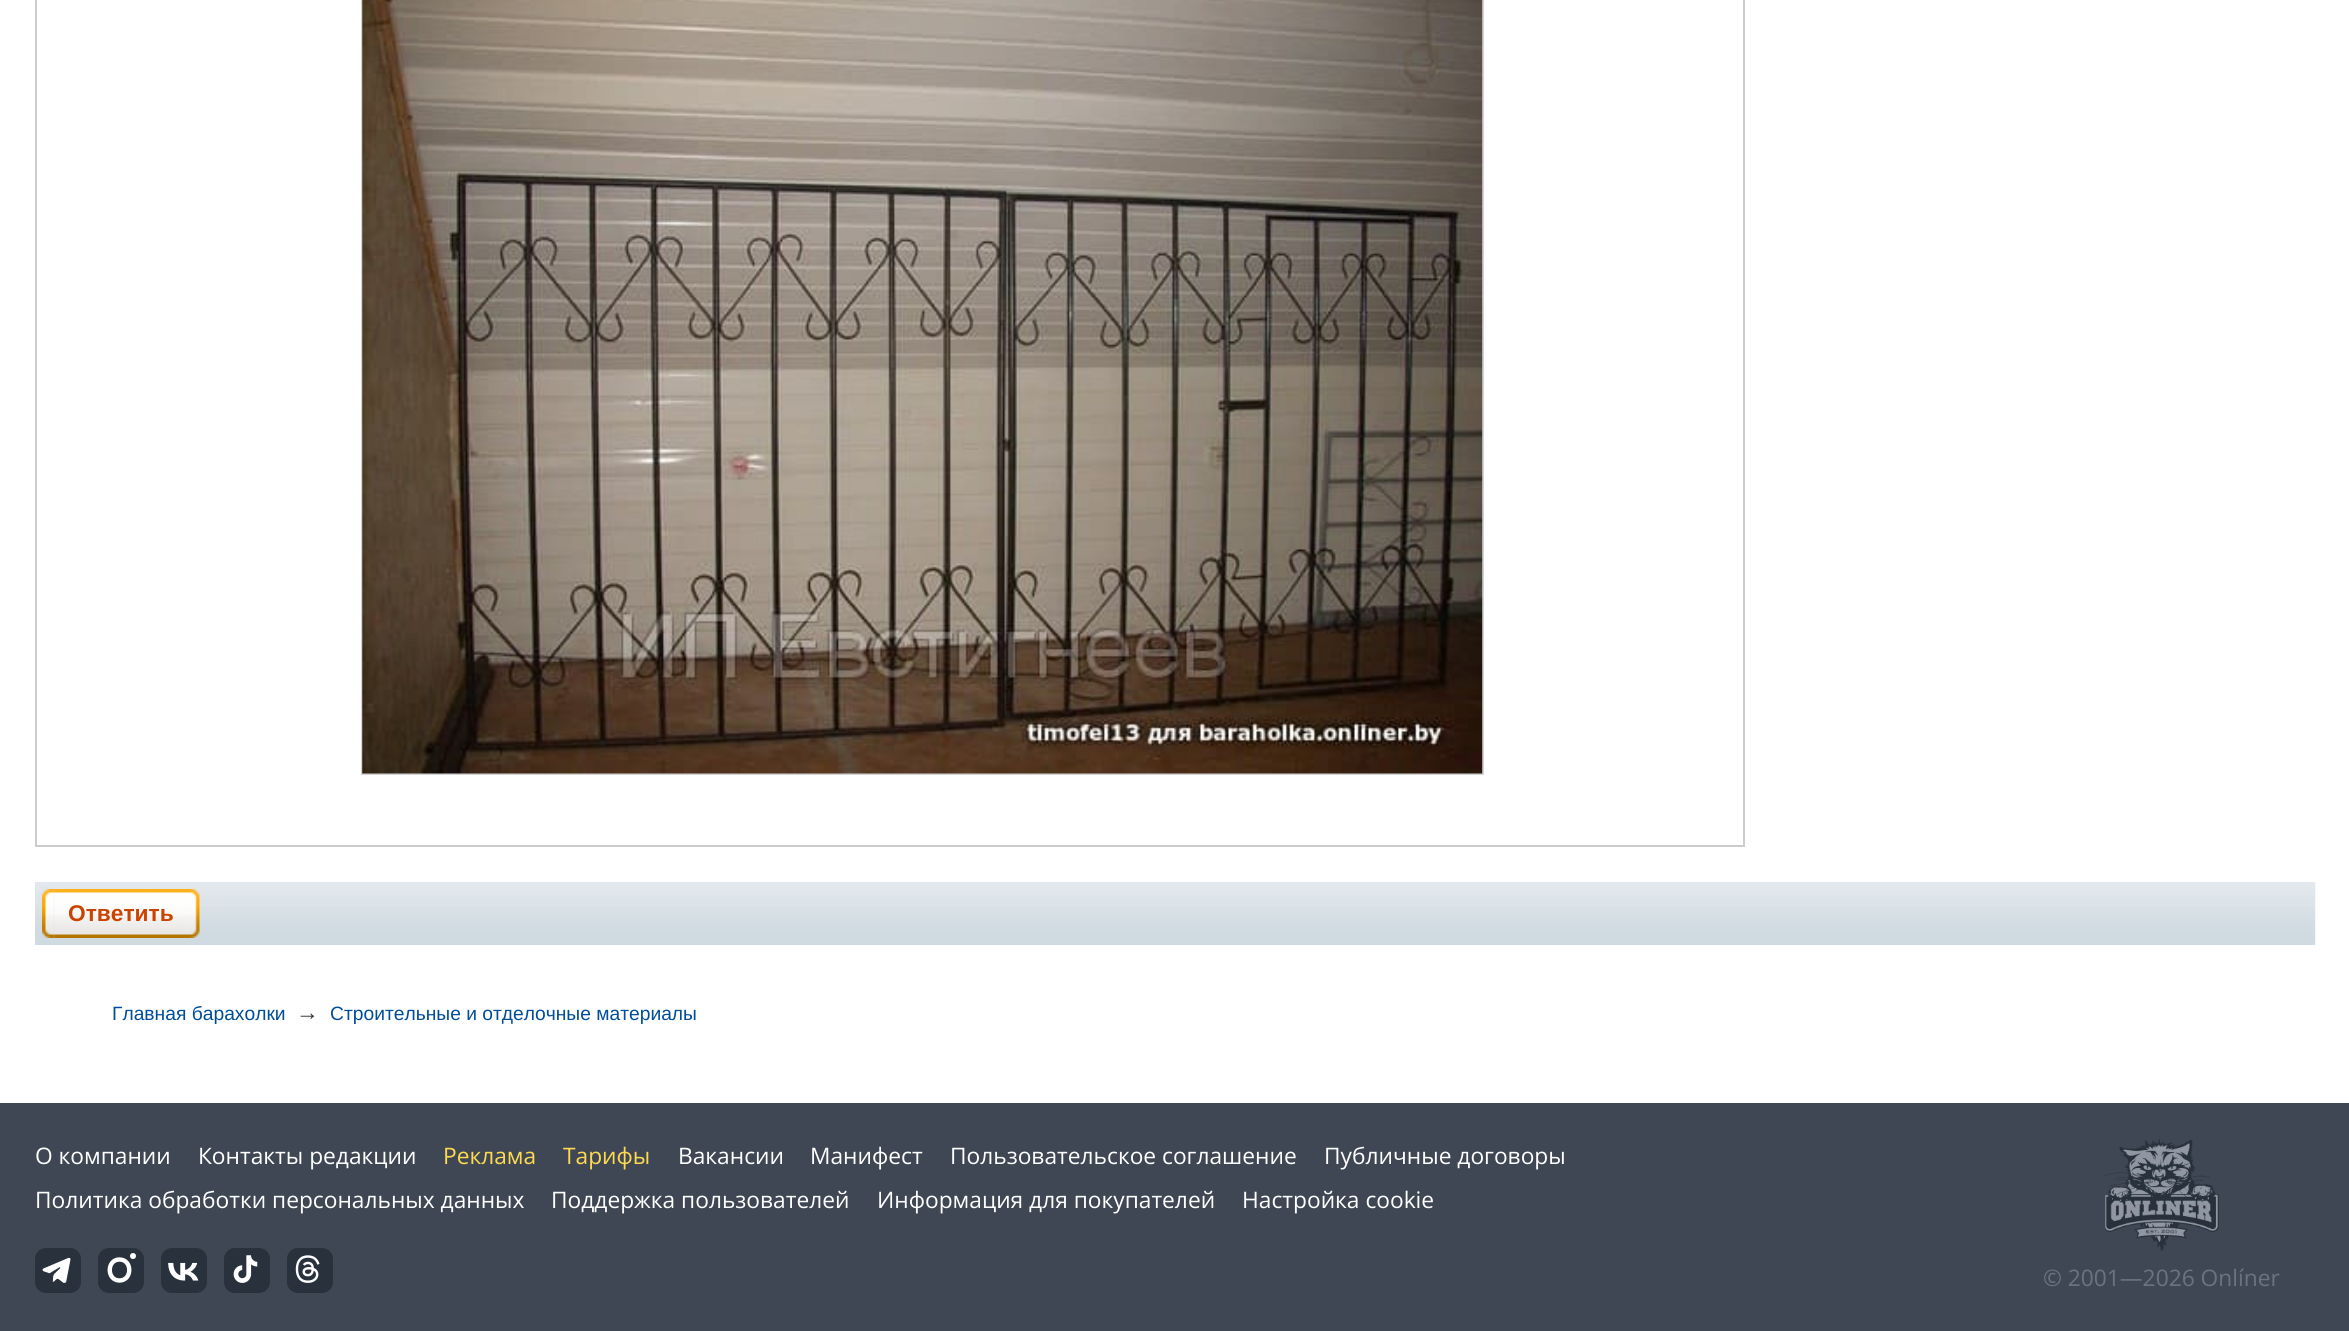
#include <cairo.h>
#include <math.h>
#include <stddef.h>

typedef struct { const char *family; double size; int italic, bold; unsigned color; } style_t;
static cairo_t *ctx;

static void ink(unsigned color) {
    cairo_set_source_rgb(ctx, (color >> 16) / 255.0, (color >> 8 & 255) / 255.0, (color & 255) / 255.0);
}

static void write(double x, double y, const char *s, const style_t *st) {
    cairo_select_font_face(ctx, st->family, st->italic ? CAIRO_FONT_SLANT_ITALIC : CAIRO_FONT_SLANT_NORMAL,
        st->bold ? CAIRO_FONT_WEIGHT_BOLD : CAIRO_FONT_WEIGHT_NORMAL);
    cairo_set_font_size(ctx, st->size);
    ink(st->color);
    cairo_move_to(ctx, x, y);
    cairo_show_text(ctx, s);
}

static void block(double x, double y, double w, double h, unsigned color) {
    ink(color);
    cairo_rectangle(ctx, x, y, w, h);
    cairo_fill(ctx);
}

static void round_path(double x, double y, double w, double h, double r) {
    cairo_new_sub_path(ctx);
    cairo_arc(ctx, x + w - r, y + h - r, r, 0, M_PI / 2);
    cairo_arc(ctx, x + r, y + h - r, r, M_PI / 2, M_PI);
    cairo_arc(ctx, x + r, y + r, r, M_PI, 1.5 * M_PI);
    cairo_arc(ctx, x + w - r, y + r, r, 1.5 * M_PI, 2 * M_PI);
    cairo_close_path(ctx);
}

static void paste(const char *path, double x, double y, double w, double h) {
    cairo_surface_t *image = cairo_image_surface_create_from_png(path);
    cairo_save(ctx);
    cairo_set_source_surface(ctx, image, x, y);
    cairo_rectangle(ctx, x, y, w, h);
    cairo_fill(ctx);
    cairo_restore(ctx);
    cairo_surface_destroy(image);
}

static const style_t s1 = {"Liberation Sans", 22.75, 0, 1, 0xcb4300};
static const style_t s2 = {"Liberation Sans", 19.25, 0, 0, 0x004d99};
static const style_t s3 = {"Liberation Sans", 22.75, 0, 0, 0x333333};
static const style_t s4 = {"Open Sans", 22.75, 0, 0, 0xffffff};
static const style_t s5 = {"Open Sans", 22.75, 0, 0, 0xffda50};
static const style_t s6 = {"Open Sans", 22.75, 0, 0, 0x6b737f};

int main(void) {
    cairo_surface_t *surface = cairo_image_surface_create(CAIRO_FORMAT_RGB24, 2349, 1331);
    ctx = cairo_create(surface);
    cairo_font_options_t *options = cairo_font_options_create();
    cairo_font_options_set_hint_metrics(options, CAIRO_HINT_METRICS_OFF);
    cairo_font_options_set_hint_style(options, CAIRO_HINT_STYLE_NONE);
    cairo_set_font_options(ctx, options);
    cairo_set_miter_limit(ctx, 4);
    ink(0x3e4753);
    cairo_paint(ctx);
    block(0, 0, 2349, 1103, 0xffffff);
    cairo_rectangle(ctx, 36, -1, 1708, 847);
    ink(0xcccccc);
    cairo_stroke(ctx);
    cairo_rectangle(ctx, 362, -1, 1121, 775);
    ink(0xd4d4d4);
    cairo_stroke(ctx);
    paste("pic1.png", 362, 0, 1121, 774);
    paste("pic2.png", 35, 882, 2281, 63);
    paste("pic3.png", 42, 889, 13, 49);
    paste("pic4.png", 54, 889, 146, 49);
    write(68, 921, "Ответить", &s1);
    write(112, 1020, "Главная барахолки", &s2);
    write(296, 1020, "→", &s3);
    write(330, 1020, "Строительные и отделочные материалы", &s2);
    write(35, 1164, "О компании", &s4);
    write(198, 1164, "Контакты редакции", &s4);
    write(443, 1164, "Реклама", &s5);
    write(563, 1164, "Тарифы", &s5);
    write(678, 1164, "Вакансии", &s4);
    write(810, 1164, "Манифест", &s4);
    write(950, 1164, "Пользовательское соглашение", &s4);
    write(1324, 1164, "Публичные договоры", &s4);
    write(35, 1208, "Политика обработки персональных данных", &s4);
    write(551, 1208, "Поддержка пользователей", &s4);
    write(877, 1208, "Информация для покупателей", &s4);
    write(1242, 1208, "Настройка cookie", &s4);
    ink(0x28313c);
    round_path(35, 1248, 46, 45, 11);
    cairo_fill(ctx);
    paste("pic5.png", 42, 1257, 29, 26);
    round_path(98, 1248, 46, 45, 11);
    cairo_fill(ctx);
    cairo_new_path(ctx);
    cairo_move_to(ctx, 119.5, 1259.5);
    cairo_curve_to(ctx, 132.5, 1259.5, 132.5, 1280.5, 119.5, 1280.5);
    cairo_curve_to(ctx, 106.5, 1280.5, 106.5, 1259.5, 119.5, 1259.5);
    cairo_close_path(ctx);
    ink(0xffffff);
    cairo_set_line_width(ctx, 4.4);
    cairo_stroke(ctx);
    cairo_arc(ctx, 133, 1256, 3, 0, 2 * M_PI);
    cairo_fill(ctx);
    ink(0x28313c);
    round_path(161, 1248, 46, 45, 11);
    cairo_fill(ctx);
    paste("pic6.png", 168, 1262, 31, 19);
    round_path(224, 1248, 46, 45, 11);
    cairo_fill(ctx);
    paste("pic7.png", 233, 1255, 25, 28);
    round_path(287, 1248, 46, 45, 11);
    cairo_fill(ctx);
    paste("pic8.png", 295, 1255, 25, 28);
    paste("pic9.png", 2105, 1139, 114, 112);
    write(2043, 1286, "© 2001—2026 Onlíner", &s6);
    cairo_surface_write_to_png(surface, "screenshot.png");
    cairo_font_options_destroy(options);
    cairo_destroy(ctx);
    cairo_surface_destroy(surface);
    return 0;
}
